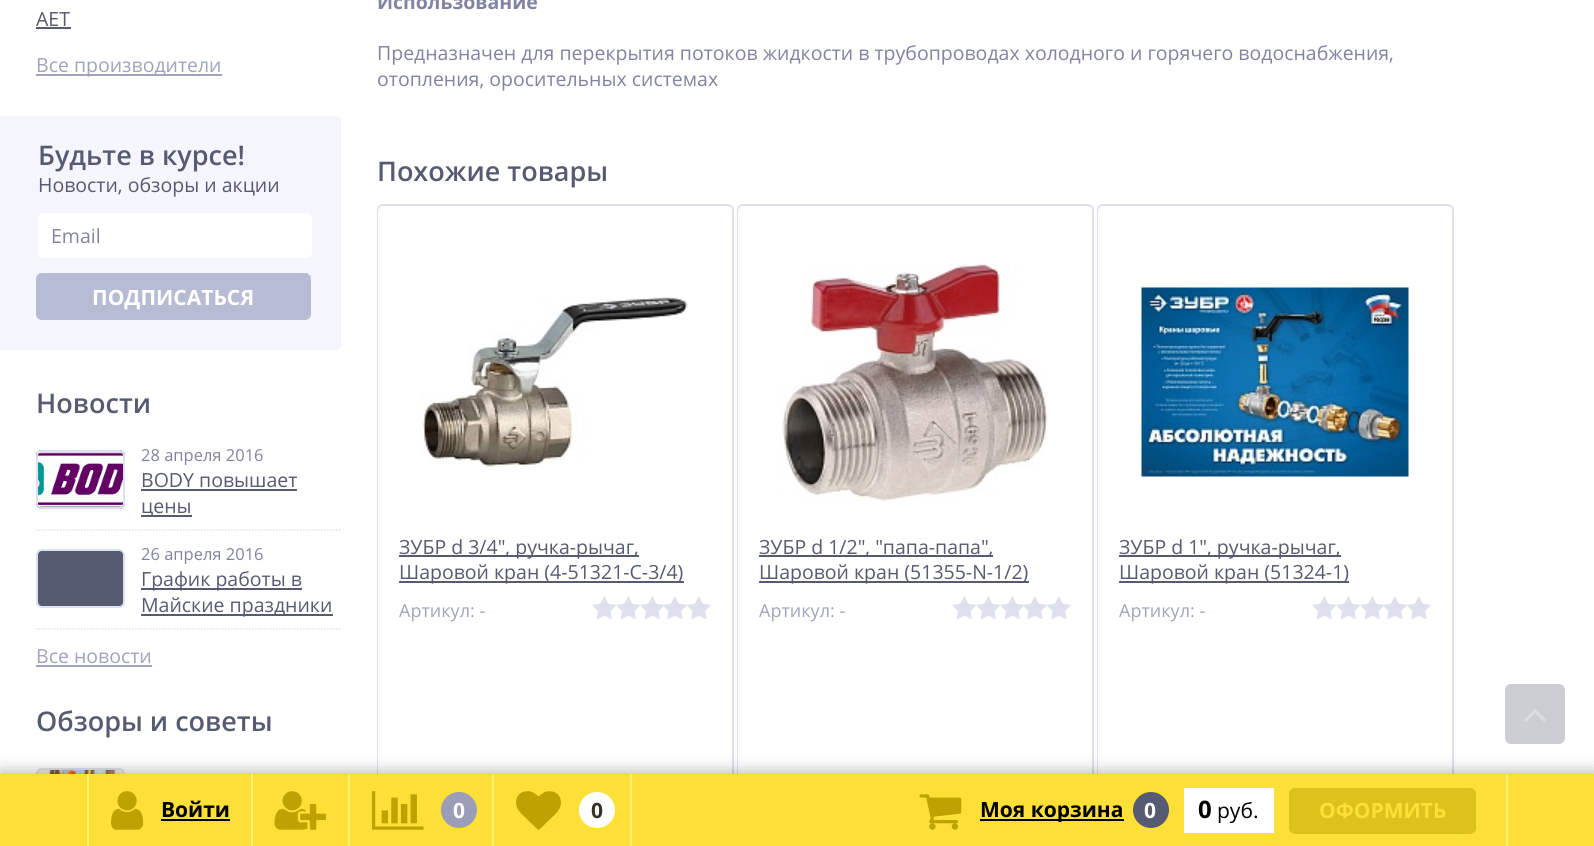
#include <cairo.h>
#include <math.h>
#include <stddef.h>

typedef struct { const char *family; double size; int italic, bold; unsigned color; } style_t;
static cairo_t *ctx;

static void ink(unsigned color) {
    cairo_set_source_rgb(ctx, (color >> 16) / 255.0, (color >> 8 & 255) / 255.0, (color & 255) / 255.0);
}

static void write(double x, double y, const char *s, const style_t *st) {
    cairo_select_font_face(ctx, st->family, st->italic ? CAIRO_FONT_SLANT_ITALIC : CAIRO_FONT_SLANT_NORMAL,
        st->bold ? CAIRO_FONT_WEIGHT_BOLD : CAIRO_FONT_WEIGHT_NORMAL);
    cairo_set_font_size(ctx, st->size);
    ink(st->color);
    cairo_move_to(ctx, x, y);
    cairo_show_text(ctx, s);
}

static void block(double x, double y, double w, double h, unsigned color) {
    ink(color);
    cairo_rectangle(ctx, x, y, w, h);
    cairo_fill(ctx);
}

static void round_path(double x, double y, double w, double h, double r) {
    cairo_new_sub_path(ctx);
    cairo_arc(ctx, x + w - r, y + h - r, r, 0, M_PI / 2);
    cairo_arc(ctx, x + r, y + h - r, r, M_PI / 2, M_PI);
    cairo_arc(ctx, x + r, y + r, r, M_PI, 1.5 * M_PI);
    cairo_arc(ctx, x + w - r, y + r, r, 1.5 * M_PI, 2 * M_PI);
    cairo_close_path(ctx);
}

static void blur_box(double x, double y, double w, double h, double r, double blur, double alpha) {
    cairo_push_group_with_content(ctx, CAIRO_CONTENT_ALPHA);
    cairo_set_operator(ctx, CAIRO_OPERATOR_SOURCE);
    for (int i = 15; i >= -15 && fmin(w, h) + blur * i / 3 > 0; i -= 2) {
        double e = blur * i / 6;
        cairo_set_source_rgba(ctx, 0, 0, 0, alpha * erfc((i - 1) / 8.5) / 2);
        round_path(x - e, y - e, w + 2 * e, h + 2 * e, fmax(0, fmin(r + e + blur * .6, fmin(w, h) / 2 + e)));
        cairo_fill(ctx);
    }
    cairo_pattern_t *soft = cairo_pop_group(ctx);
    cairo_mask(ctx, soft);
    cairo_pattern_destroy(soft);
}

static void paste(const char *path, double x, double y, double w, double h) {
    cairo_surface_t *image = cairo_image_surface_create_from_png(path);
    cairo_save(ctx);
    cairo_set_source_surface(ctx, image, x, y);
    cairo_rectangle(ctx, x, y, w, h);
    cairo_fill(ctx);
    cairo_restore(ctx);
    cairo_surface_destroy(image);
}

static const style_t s1 = {"Open Sans", 19.5, 0, 0, 0x575b71};
static const style_t s2 = {"Open Sans", 19.5, 0, 0, 0xa0a4bc};
static const style_t s3 = {"Open Sans SemiBold", 27, 0, 0, 0x575b71};
static const style_t s4 = {"Open Sans", 19.5, 0, 0, 0x8184a1};
static const style_t s5 = {"Open Sans", 21, 0, 1, 0xffffff};
static const style_t s6 = {"Open Sans", 16.5, 0, 0, 0x8184a1};
static const style_t s7 = {"Open Sans", 19.5, 0, 1, 0x8184a1};
static const style_t s8 = {"Open Sans", 18, 0, 0, 0xa0a4bc};
static const style_t s9 = {"Open Sans", 21, 0, 1, 0x000000};
static const style_t s10 = {"Open Sans", 21, 0, 1, 0x363224};
static const style_t s11 = {"Open Sans", 24, 0, 1, 0x000000};
static const style_t s12 = {"Open Sans", 21, 0, 0, 0x000000};
static const style_t s13 = {"Open Sans", 21, 0, 1, 0xfde037};

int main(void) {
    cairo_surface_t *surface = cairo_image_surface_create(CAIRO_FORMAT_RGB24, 1594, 846);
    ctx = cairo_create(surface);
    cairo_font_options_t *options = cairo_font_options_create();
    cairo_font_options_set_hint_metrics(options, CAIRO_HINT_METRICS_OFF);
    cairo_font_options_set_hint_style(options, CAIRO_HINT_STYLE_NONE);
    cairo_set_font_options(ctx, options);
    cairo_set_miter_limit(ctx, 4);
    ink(0xffffff);
    cairo_paint(ctx);
    write(36, 26, "AET", &s1);
    block(36, 27, 35, 2, 0x575b71);
    block(36, 74, 186, 2, 0xa0a4bc);
    write(36, 72, "Все производители", &s2);
    ink(0xf4f5fd);
    cairo_new_path(ctx);
    cairo_move_to(ctx, 0, 116);
    cairo_line_to(ctx, 335, 116);
    cairo_curve_to(ctx, 338.5, 116, 341, 118.5, 341, 122);
    cairo_line_to(ctx, 341, 344);
    cairo_curve_to(ctx, 341, 347.5, 338.5, 350, 335, 350);
    cairo_line_to(ctx, 0, 350);
    cairo_close_path(ctx);
    cairo_fill(ctx);
    write(38, 165, "Будьте в курсе!", &s3);
    write(38, 192, "Новости, обзоры и акции", &s1);
    ink(0xffffff);
    round_path(38, 213, 274, 45, 6);
    cairo_fill(ctx);
    write(51, 243, "Email", &s4);
    ink(0xb7bbd3);
    round_path(36, 273, 275, 47, 6);
    cairo_fill(ctx);
    write(92, 305, "ПОДПИСАТЬСЯ", &s5);
    write(36, 413, "Новости", &s3);
    cairo_new_path(ctx);
    cairo_move_to(ctx, 36, 530);
    cairo_line_to(ctx, 340.5, 530);
    ink(0xdee0ee);
    cairo_set_line_width(ctx, 1.5);
    cairo_set_dash(ctx, (double[]){1.5, 1.5}, 2, 0);
    cairo_stroke(ctx);
    ink(0x575b71);
    round_path(36, 450, 89, 59, 6);
    cairo_fill(ctx);
    paste("pic1.png", 36, 451, 89, 56);
    round_path(37, 451, 87, 57, 5);
    ink(0xdee0ee);
    cairo_set_line_width(ctx, 2);
    cairo_set_dash(ctx, NULL, 0, 0);
    cairo_stroke(ctx);
    write(141, 461, "28 апреля 2016", &s6);
    write(141, 487, "BODY повышает", &s1);
    block(141, 489, 156, 2, 0x575b71);
    block(141, 515, 51, 2, 0x575b71);
    write(141, 513, "цены", &s1);
    cairo_new_path(ctx);
    cairo_move_to(ctx, 36, 629);
    cairo_line_to(ctx, 340.5, 629);
    ink(0xdee0ee);
    cairo_set_line_width(ctx, 1.5);
    cairo_set_dash(ctx, (double[]){1.5, 1.5}, 2, 0);
    cairo_stroke(ctx);
    ink(0x575b71);
    round_path(37, 550, 87, 57, 5);
    cairo_fill_preserve(ctx);
    ink(0xdee0ee);
    cairo_set_line_width(ctx, 2);
    cairo_set_dash(ctx, NULL, 0, 0);
    cairo_stroke(ctx);
    write(141, 560, "26 апреля 2016", &s6);
    block(141, 588, 161, 2, 0x575b71);
    write(141, 586, "График работы в", &s1);
    block(141, 614, 192, 2, 0x575b71);
    write(141, 612, "Майские праздники", &s1);
    write(36, 663, "Все новости", &s2);
    block(36, 665, 116, 2, 0xa0a4bc);
    write(36, 731, "Обзоры и советы", &s3);
    paste("pic2.png", 37, 769, 86, 5);
    round_path(37, 769, 87, 57, 5);
    ink(0xdee0ee);
    cairo_stroke(ctx);
    write(377, 9, "Использование", &s7);
    write(377, 60, "Предназначен для перекрытия потоков жидкости в трубопроводах холодного и горячего водоснабжения,", &s4);
    write(377, 86, "отопления, оросительных системах", &s4);
    write(377, 181, "Похожие товары", &s3);
    round_path(378, 205, 355, 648, 5);
    ink(0xdee0ee);
    cairo_stroke(ctx);
    round_path(379, 207, 352, 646, 5);
    ink(0xffffff);
    cairo_stroke(ctx);
    paste("pic3.png", 421, 297, 267, 170);
    block(399, 555, 240, 2, 0x575b71);
    write(399, 554, "ЗУБР d 3/4″, ручка-рычаг,", &s1);
    block(399, 581, 285, 2, 0x575b71);
    write(399, 579, "Шаровой кран (4-51321-C-3/4)", &s1);
    write(399, 617, "Артикул: -", &s8);
    paste("pic4.png", 592, 596, 24, 23);
    paste("pic4.png", 616, 596, 24, 23);
    paste("pic4.png", 640, 596, 24, 23);
    paste("pic5.png", 663, 596, 24, 23);
    paste("pic6.png", 687, 596, 24, 23);
    round_path(738, 205, 355, 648, 5);
    ink(0xdee0ee);
    cairo_stroke(ctx);
    round_path(739, 207, 352, 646, 5);
    ink(0xffffff);
    cairo_stroke(ctx);
    paste("pic7.png", 782, 263, 266, 239);
    block(759, 555, 234, 2, 0x575b71);
    write(759, 554, "ЗУБР d 1/2″, ″папа-папа″,", &s1);
    block(759, 581, 270, 2, 0x575b71);
    write(759, 579, "Шаровой кран (51355-N-1/2)", &s1);
    write(759, 617, "Артикул: -", &s8);
    paste("pic4.png", 952, 596, 24, 23);
    paste("pic4.png", 976, 596, 24, 23);
    paste("pic4.png", 1000, 596, 24, 23);
    paste("pic5.png", 1023, 596, 24, 23);
    paste("pic6.png", 1047, 596, 24, 23);
    round_path(1098, 205, 355, 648, 5);
    ink(0xdee0ee);
    cairo_stroke(ctx);
    round_path(1099, 207, 352, 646, 5);
    ink(0xffffff);
    cairo_stroke(ctx);
    paste("pic8.png", 1141, 287, 268, 190);
    block(1119, 555, 222, 2, 0x575b71);
    write(1119, 554, "ЗУБР d 1″, ручка-рычаг,", &s1);
    block(1119, 581, 230, 2, 0x575b71);
    write(1119, 579, "Шаровой кран (51324-1)", &s1);
    write(1119, 617, "Артикул: -", &s8);
    paste("pic4.png", 1312, 596, 24, 23);
    paste("pic4.png", 1336, 596, 24, 23);
    paste("pic4.png", 1360, 596, 24, 23);
    paste("pic5.png", 1383, 596, 24, 23);
    paste("pic6.png", 1407, 596, 24, 23);
    ink(0x000000);
    blur_box(0, 774, 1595, 72, 0, 9, 0.36);
    block(0, 774, 1594, 72, 0xfde037);
    block(1506, 774, 2, 72, 0xfff46b);
    block(87, 774, 2, 72, 0xfff46b);
    block(251, 774, 2, 72, 0xfff46b);
    paste("pic9.png", 111, 791, 33, 39);
    write(161, 817, "Войти", &s9);
    block(161, 819, 69, 2, 0x000000);
    block(348, 774, 2, 72, 0xfff46b);
    paste("pic10.png", 274, 791, 52, 39);
    block(492, 774, 2, 72, 0xfff46b);
    paste("pic11.png", 372, 791, 52, 39);
    ink(0x9b9db9);
    cairo_arc(ctx, 459, 810, 18, 0, 2 * M_PI);
    cairo_fill(ctx);
    write(453, 818, "0", &s5);
    block(630, 774, 2, 72, 0xfff46b);
    paste("pic12.png", 516, 791, 45, 39);
    ink(0xffffff);
    cairo_arc(ctx, 597, 810, 18, 0, 2 * M_PI);
    cairo_fill(ctx);
    write(591, 818, "0", &s10);
    paste("pic13.png", 919, 794, 43, 36);
    block(980, 819, 144, 2, 0x000000);
    write(980, 817, "Моя корзина", &s9);
    ink(0x575b71);
    cairo_new_path(ctx);
    cairo_arc(ctx, 1151, 810, 18, 0, 2 * M_PI);
    cairo_fill(ctx);
    write(1144, 818, "0", &s5);
    block(1184, 788, 90, 45, 0xffffff);
    write(1198, 818, "0", &s11);
    write(1217, 818, "руб.", &s12);
    ink(0xddc11c);
    round_path(1289, 788, 187, 46, 6);
    cairo_fill(ctx);
    write(1319, 818, "ОФОРМИТЬ", &s13);
    ink(0xcdced4);
    round_path(1505, 684, 60, 60, 6);
    cairo_fill(ctx);
    paste("pic14.png", 1524, 709, 22, 13);
    cairo_surface_write_to_png(surface, "screenshot.png");
    cairo_font_options_destroy(options);
    cairo_destroy(ctx);
    cairo_surface_destroy(surface);
    return 0;
}
